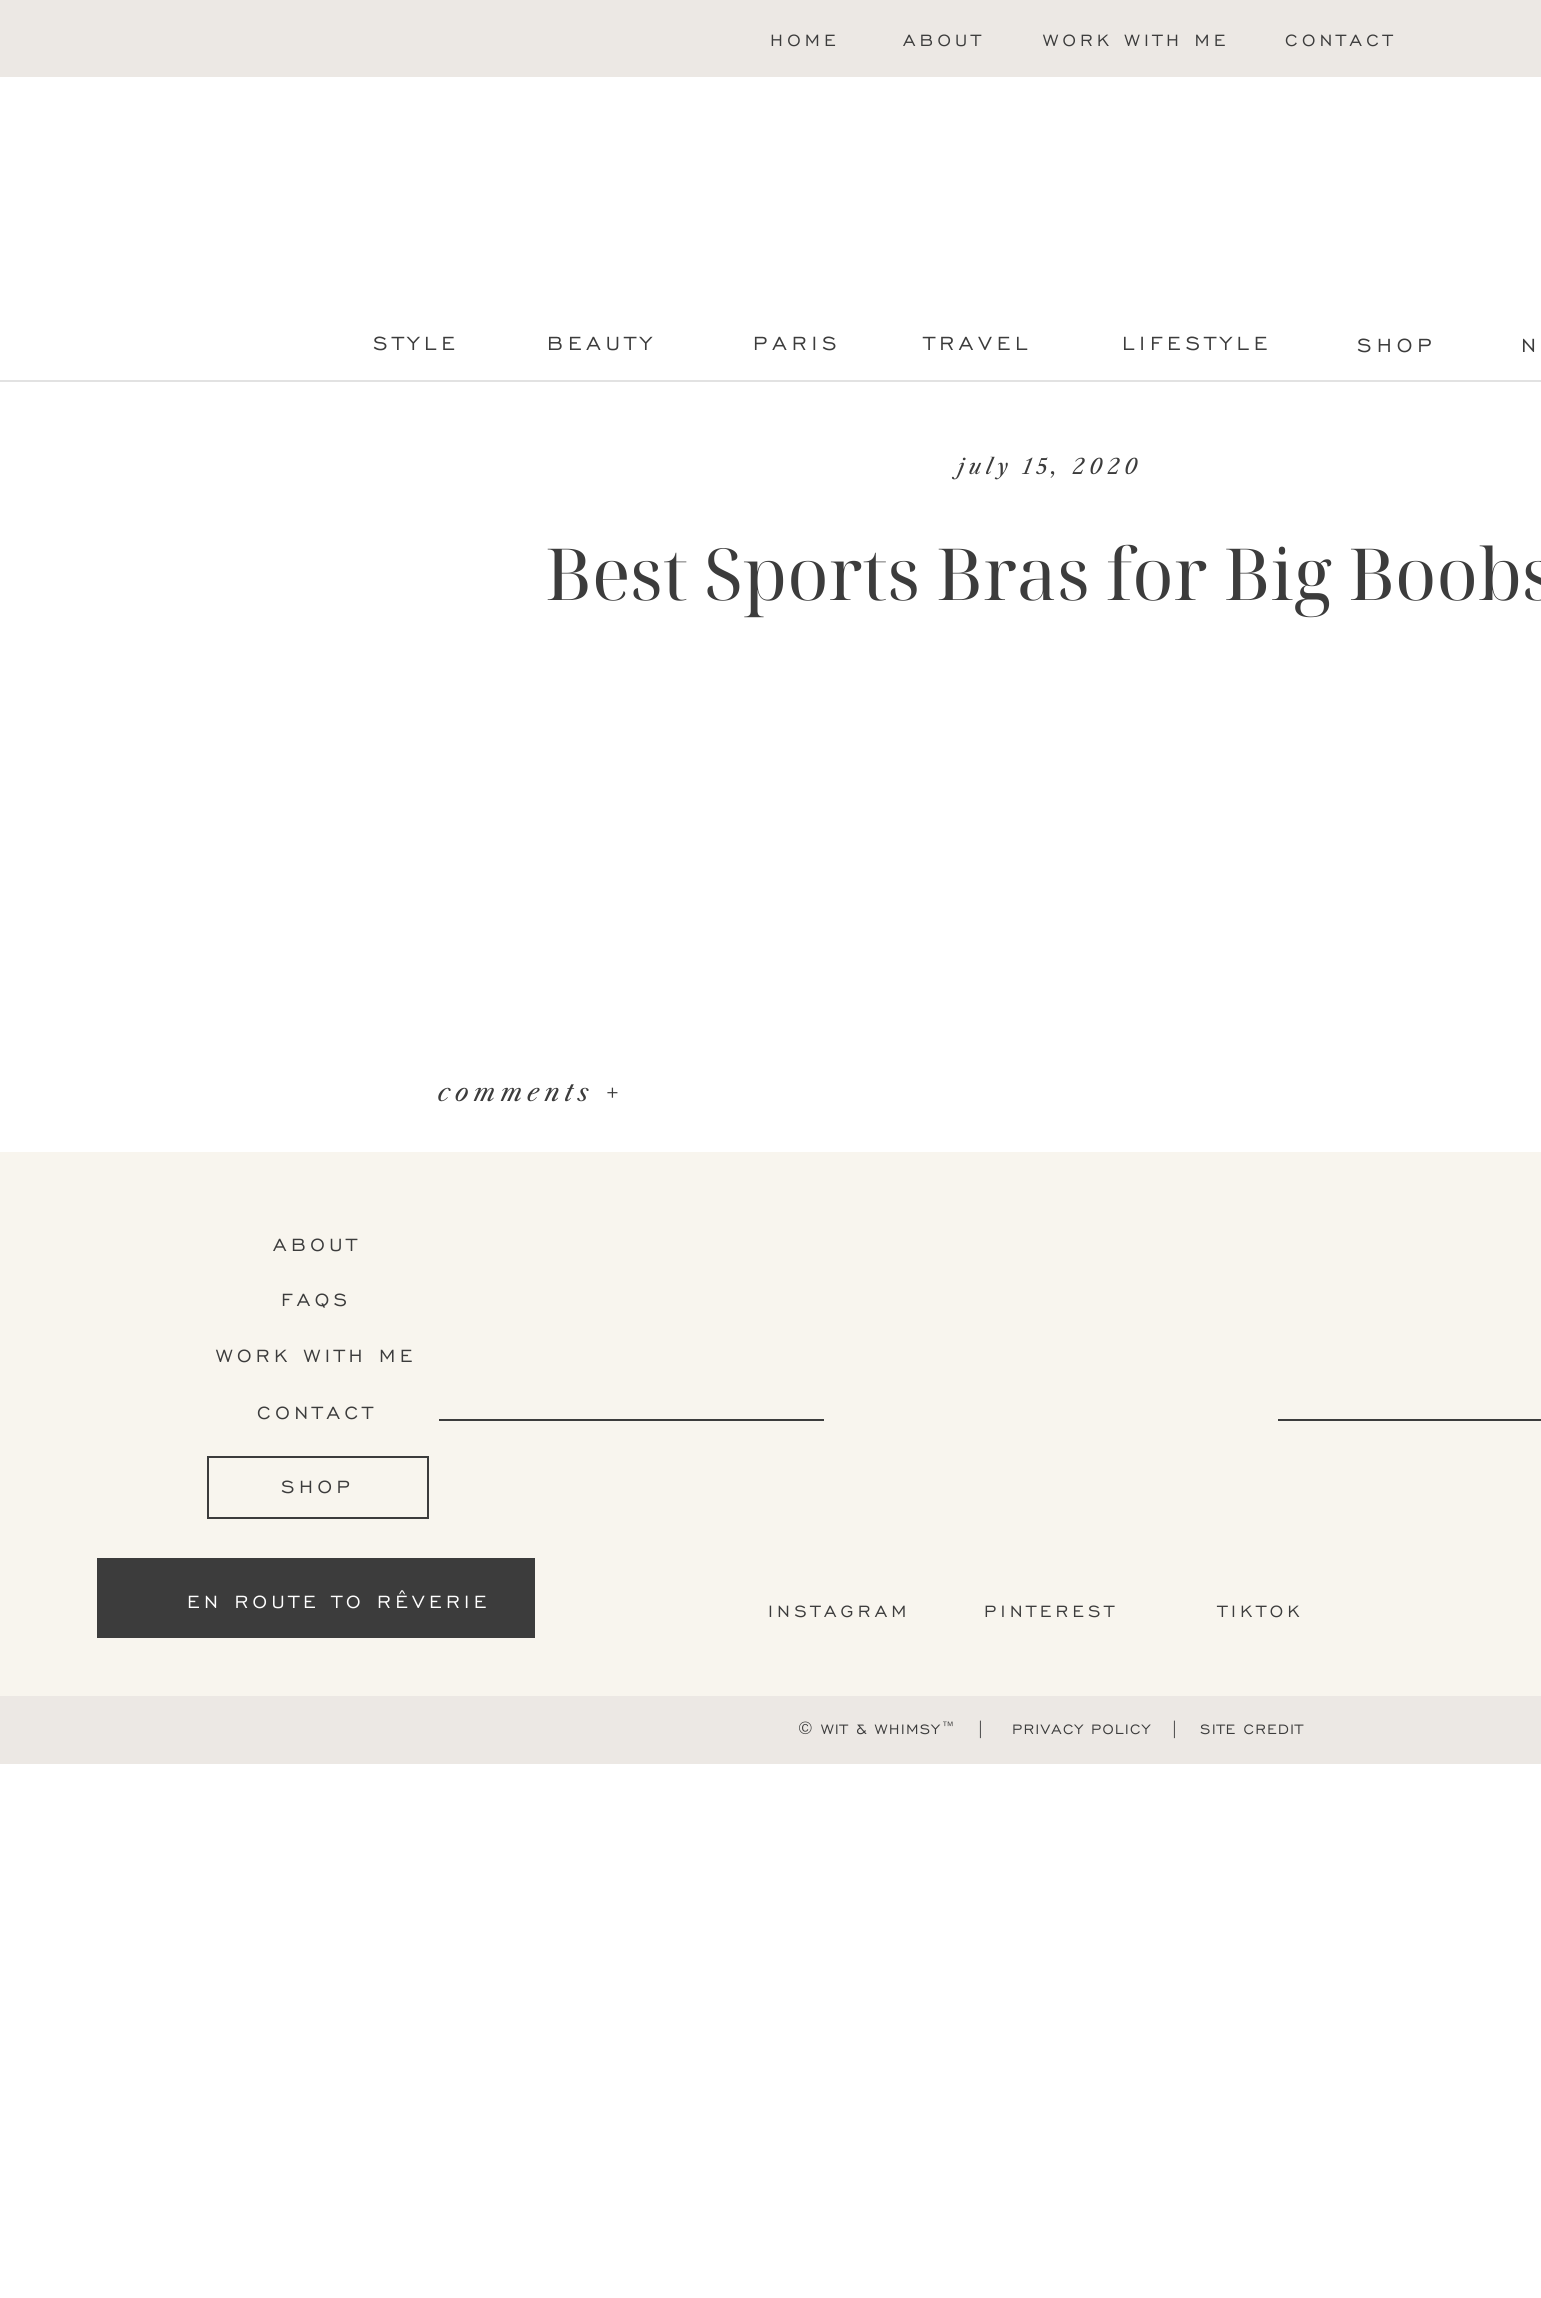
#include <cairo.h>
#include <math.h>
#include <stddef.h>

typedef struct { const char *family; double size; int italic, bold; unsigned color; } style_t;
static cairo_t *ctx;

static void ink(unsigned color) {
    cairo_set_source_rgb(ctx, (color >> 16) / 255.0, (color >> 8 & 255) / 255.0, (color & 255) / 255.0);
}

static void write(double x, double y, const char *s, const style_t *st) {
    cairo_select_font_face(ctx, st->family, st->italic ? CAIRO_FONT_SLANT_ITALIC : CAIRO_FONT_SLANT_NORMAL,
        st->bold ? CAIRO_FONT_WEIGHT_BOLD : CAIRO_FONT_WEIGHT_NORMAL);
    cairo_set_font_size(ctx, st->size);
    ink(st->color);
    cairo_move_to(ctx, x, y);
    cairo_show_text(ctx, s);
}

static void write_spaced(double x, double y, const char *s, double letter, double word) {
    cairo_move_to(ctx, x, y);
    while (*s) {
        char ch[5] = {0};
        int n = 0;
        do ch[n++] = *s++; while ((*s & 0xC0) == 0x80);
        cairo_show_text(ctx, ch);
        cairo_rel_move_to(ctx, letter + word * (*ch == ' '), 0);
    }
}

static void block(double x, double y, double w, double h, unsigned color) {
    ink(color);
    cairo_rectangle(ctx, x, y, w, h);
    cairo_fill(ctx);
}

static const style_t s1 = {"Noto Serif Display", 71.75, 0, 0, 0x3c3c3c};

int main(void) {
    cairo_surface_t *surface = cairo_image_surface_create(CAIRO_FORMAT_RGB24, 1541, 2298);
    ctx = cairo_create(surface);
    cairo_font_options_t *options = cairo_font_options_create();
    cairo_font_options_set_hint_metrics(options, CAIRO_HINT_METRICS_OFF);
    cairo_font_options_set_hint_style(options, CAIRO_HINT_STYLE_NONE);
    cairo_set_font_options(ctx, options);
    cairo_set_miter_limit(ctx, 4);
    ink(0xffffff);
    cairo_paint(ctx);
    block(0, 0, 1541, 77, 0xece8e4);
    cairo_select_font_face(ctx, "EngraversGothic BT", CAIRO_FONT_SLANT_NORMAL, CAIRO_FONT_WEIGHT_NORMAL);
    cairo_set_font_size(ctx, 21);
    ink(0x3c3c3c);
    write_spaced(770, 46, "HOME", 4.25, 0);
    write_spaced(903, 46, "ABOUT", 4.25, 0);
    write_spaced(1043, 46, "WORK WITH ME", 4.25, 0);
    write_spaced(1285, 46, "CONTACT", 4.25, 0);
    cairo_set_font_size(ctx, 24.5);
    write_spaced(373, 350, "STYLE", 5, 0);
    write_spaced(547, 350, "BEAUTY", 5, 0);
    write_spaced(753, 350, "PARIS", 5, 0);
    write_spaced(924, 350, "TRAVEL", 5, 0);
    write_spaced(1122, 350, "LIFESTYLE", 5, 0);
    write_spaced(1357, 352, "SHOP", 5, 0);
    block(0, 380, 1541, 2, 0xe2e2e2);
    ink(0x3c3c3c);
    write_spaced(1521, 352, "N", 5, 0);
    cairo_select_font_face(ctx, "Libre Caslon Text", CAIRO_FONT_SLANT_ITALIC, CAIRO_FONT_WEIGHT_NORMAL);
    cairo_set_font_size(ctx, 21);
    write_spaced(958, 474, "july 15, 2020", 4.25, 0);
    write(545, 600, "Best Sports Bras for Big Boobs", &s1);
    cairo_select_font_face(ctx, "Libre Caslon Text", CAIRO_FONT_SLANT_ITALIC, CAIRO_FONT_WEIGHT_NORMAL);
    cairo_set_font_size(ctx, 24.5);
    write_spaced(438, 1101, "comments +", 5, 0);
    block(0, 1152, 1541, 544, 0xf8f5ee);
    cairo_select_font_face(ctx, "EngraversGothic BT", CAIRO_FONT_SLANT_NORMAL, CAIRO_FONT_WEIGHT_NORMAL);
    cairo_set_font_size(ctx, 22.75);
    ink(0x3c3c3c);
    write_spaced(273, 1251, "ABOUT", 4.5, 0);
    write_spaced(281, 1306, "FAQS", 4.5, 0);
    write_spaced(216, 1362, "WORK WITH ME", 4.5, 0);
    write_spaced(257, 1419, "CONTACT", 4.5, 0);
    block(439, 1419, 385, 2, 0x3c3c3c);
    block(1278, 1419, 263, 2, 0x3c3c3c);
    cairo_rectangle(ctx, 208, 1457, 220, 61);
    cairo_stroke(ctx);
    write_spaced(281, 1493, "SHOP", 4.5, 0);
    block(97, 1558, 438, 80, 0x3c3c3c);
    ink(0xffffff);
    write_spaced(187, 1608, "EN ROUTE TO RÊVERIE", 4.5, 0);
    cairo_set_font_size(ctx, 21);
    ink(0x3c3c3c);
    write_spaced(768, 1617, "INSTAGRAM", 4.25, 0);
    write_spaced(984, 1617, "PINTEREST", 4.25, 0);
    write_spaced(1218, 1617, "TIKTOK", 4.25, 0);
    block(0, 1696, 1541, 68, 0xece8e4);
    cairo_set_font_size(ctx, 17.5);
    ink(0x3c3c3c);
    write_spaced(798, 1734, "© WIT & WHIMSY™", 1.25, 0);
    write_spaced(976, 1734, "|", 1.25, 0);
    write_spaced(1012, 1734, "PRIVACY POLICY", 1.25, 0);
    write_spaced(1170, 1734, "|", 1.25, 0);
    write_spaced(1200, 1734, "SITE CREDIT", 1.25, 0);
    cairo_surface_write_to_png(surface, "screenshot.png");
    cairo_font_options_destroy(options);
    cairo_destroy(ctx);
    cairo_surface_destroy(surface);
    return 0;
}
